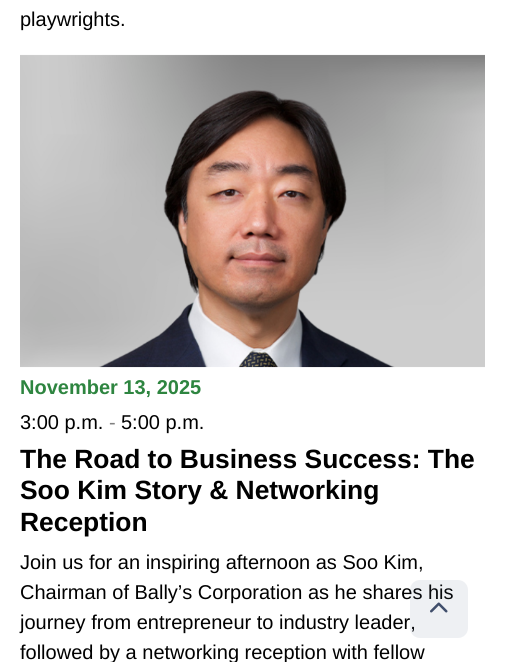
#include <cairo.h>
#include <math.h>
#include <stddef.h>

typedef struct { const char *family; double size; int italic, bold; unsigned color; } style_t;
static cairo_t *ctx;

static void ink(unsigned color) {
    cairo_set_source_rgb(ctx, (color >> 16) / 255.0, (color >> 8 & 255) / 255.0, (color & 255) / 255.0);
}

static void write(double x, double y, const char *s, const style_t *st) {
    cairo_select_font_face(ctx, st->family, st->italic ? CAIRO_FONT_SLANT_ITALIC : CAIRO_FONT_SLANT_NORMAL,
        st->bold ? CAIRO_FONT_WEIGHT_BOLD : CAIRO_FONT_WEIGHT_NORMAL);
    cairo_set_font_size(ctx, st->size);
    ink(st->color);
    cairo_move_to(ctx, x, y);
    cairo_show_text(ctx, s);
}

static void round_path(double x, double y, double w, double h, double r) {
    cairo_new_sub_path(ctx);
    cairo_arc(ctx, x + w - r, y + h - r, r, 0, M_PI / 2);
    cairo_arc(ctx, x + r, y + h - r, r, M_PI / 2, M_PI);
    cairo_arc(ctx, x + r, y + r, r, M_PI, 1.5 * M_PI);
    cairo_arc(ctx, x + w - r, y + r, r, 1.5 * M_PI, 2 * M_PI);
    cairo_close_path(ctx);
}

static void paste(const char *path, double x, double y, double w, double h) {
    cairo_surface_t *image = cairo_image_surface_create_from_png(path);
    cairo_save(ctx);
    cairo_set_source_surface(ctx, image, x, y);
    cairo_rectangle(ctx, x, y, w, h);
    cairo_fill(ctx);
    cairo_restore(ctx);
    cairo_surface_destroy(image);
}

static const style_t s1 = {"Liberation Sans", 20, 0, 0, 0x000000};
static const style_t s2 = {"Liberation Sans", 20, 0, 1, 0x2e8540};
static const style_t s3 = {"Liberation Sans", 20, 0, 0, 0x808080};
static const style_t s4 = {"Liberation Sans", 26.4, 0, 1, 0x000000};

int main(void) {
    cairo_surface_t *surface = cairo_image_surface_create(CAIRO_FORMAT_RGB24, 505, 662);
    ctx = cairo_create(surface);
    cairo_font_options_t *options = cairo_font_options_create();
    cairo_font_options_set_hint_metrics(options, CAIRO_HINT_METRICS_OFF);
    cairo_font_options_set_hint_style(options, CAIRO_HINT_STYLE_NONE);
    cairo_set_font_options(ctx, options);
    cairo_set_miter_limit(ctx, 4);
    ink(0xffffff);
    cairo_paint(ctx);
    write(20, 26, "playwrights.", &s1);
    paste("pic1.png", 20, 54, 465, 314);
    write(20, 394, "November 13, 2025", &s2);
    write(20, 429, "3:00 p.m.", &s1);
    write(109, 429, "-", &s3);
    write(121, 429, "5:00 p.m.", &s1);
    write(20, 468, "The Road to Business Success: The", &s4);
    write(20, 499, "Soo Kim Story & Networking", &s4);
    write(20, 531, "Reception", &s4);
    write(20, 569, "Join us for an inspiring afternoon as Soo Kim,", &s1);
    write(20, 599, "Chairman of Bally’s Corporation as he shares his", &s1);
    write(20, 629, "journey from entrepreneur to industry leader,", &s1);
    write(20, 659, "followed by a networking reception with fellow", &s1);
    cairo_set_source_rgba(ctx, 0.325, 0.4, 0.545, 0.1);
    round_path(410, 580, 58, 58, 10);
    cairo_fill(ctx);
    paste("pic2.png", 430, 602, 18, 11);
    cairo_surface_write_to_png(surface, "screenshot.png");
    cairo_font_options_destroy(options);
    cairo_destroy(ctx);
    cairo_surface_destroy(surface);
    return 0;
}
